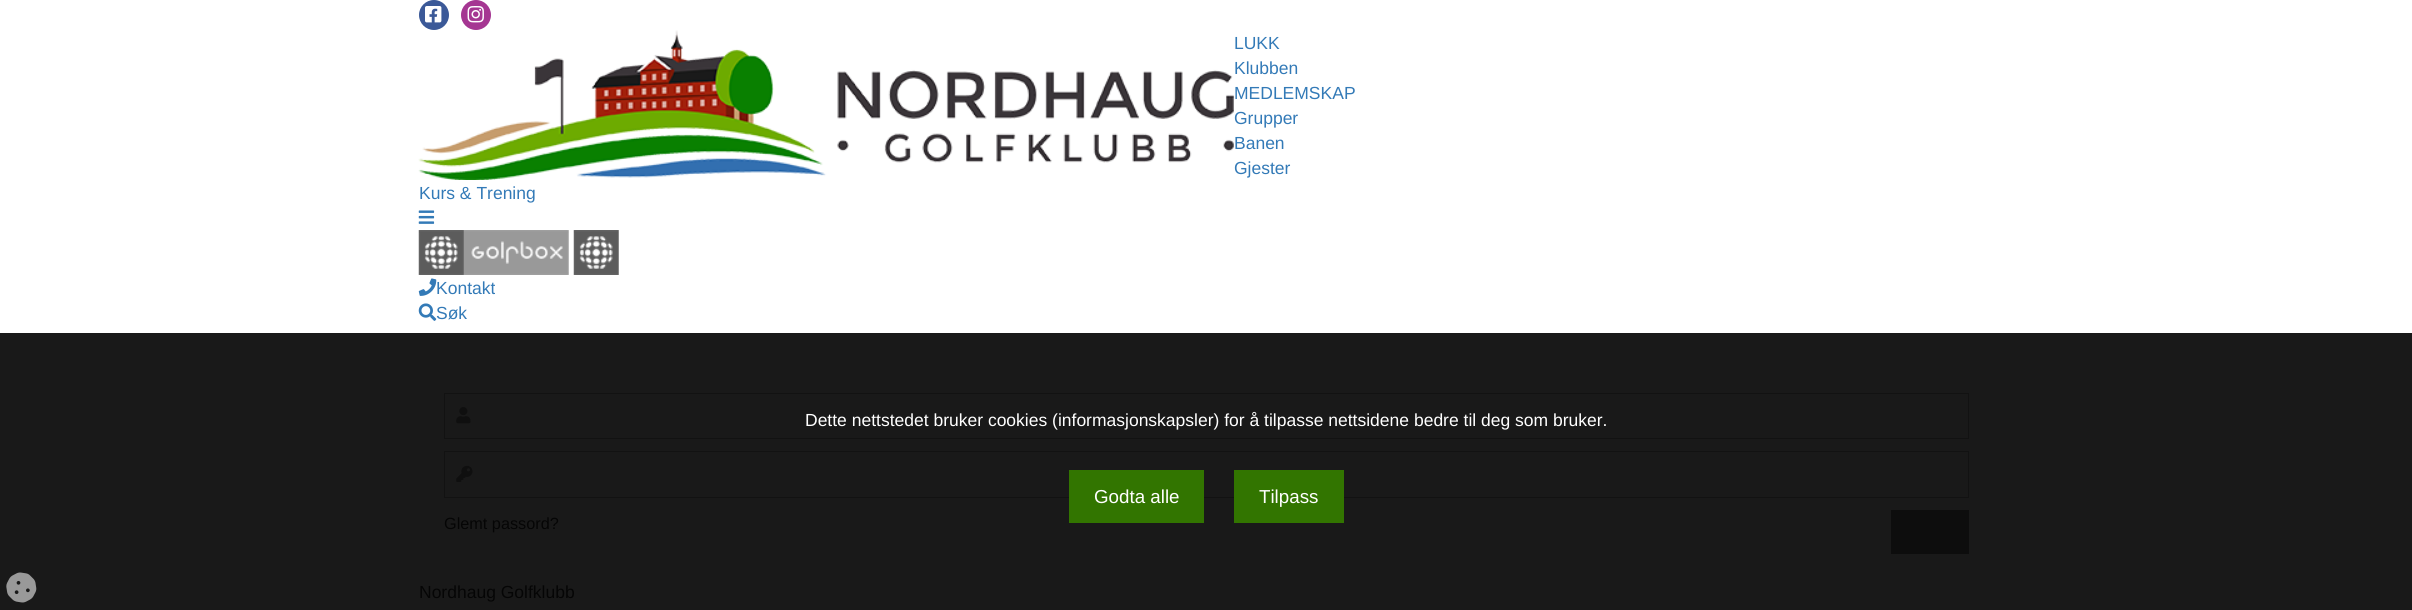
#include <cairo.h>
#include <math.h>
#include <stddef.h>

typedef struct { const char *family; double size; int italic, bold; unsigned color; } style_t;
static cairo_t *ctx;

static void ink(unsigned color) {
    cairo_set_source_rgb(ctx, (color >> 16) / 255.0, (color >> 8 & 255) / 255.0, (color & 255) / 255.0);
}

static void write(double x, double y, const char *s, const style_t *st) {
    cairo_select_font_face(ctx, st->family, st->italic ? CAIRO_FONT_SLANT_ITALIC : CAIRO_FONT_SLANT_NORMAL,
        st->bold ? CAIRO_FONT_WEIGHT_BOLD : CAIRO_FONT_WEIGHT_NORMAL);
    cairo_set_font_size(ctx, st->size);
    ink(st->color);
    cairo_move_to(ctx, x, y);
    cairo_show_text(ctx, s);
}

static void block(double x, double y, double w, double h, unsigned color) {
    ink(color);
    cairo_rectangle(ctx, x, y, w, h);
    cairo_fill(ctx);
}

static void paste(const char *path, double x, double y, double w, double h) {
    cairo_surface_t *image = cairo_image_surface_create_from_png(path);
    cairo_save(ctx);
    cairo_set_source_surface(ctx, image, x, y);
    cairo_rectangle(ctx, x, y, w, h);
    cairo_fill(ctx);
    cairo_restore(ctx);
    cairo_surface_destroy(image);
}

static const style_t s1 = {"Liberation Sans", 17.5, 0, 0, 0x337ab7};
static const style_t s2 = {"Liberation Sans", 16.25, 0, 0, 0x050505};
static const style_t s3 = {"Liberation Sans", 17.5, 0, 0, 0x050505};
static const style_t s4 = {"Liberation Sans", 17.5, 0, 0, 0xffffff};
static const style_t s5 = {"Liberation Sans", 18.75, 0, 0, 0xffffff};

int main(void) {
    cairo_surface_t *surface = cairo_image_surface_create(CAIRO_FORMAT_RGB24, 2412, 610);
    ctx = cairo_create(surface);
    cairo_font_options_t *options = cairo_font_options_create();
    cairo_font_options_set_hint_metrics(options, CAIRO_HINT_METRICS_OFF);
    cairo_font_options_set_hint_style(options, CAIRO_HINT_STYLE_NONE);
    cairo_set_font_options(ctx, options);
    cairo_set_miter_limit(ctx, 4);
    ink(0xffffff);
    cairo_paint(ctx);
    block(0, 333, 2412, 277, 0x191919);
    ink(0x3b5998);
    cairo_arc(ctx, 434, 15, 15, 0, 2 * M_PI);
    cairo_fill(ctx);
    paste("pic1.png", 425, 6, 17, 17);
    ink(0xa53692);
    cairo_arc(ctx, 476, 15, 15, 0, 2 * M_PI);
    cairo_fill(ctx);
    paste("pic2.png", 467, 6, 17, 17);
    paste("pic3.png", 418, 30, 816, 150);
    write(1234, 49, "LUKK", &s1);
    write(1234, 74, "Klubben", &s1);
    write(1234, 99, "MEDLEMSKAP", &s1);
    write(1234, 124, "Grupper", &s1);
    write(1234, 149, "Banen", &s1);
    write(1234, 174, "Gjester", &s1);
    write(419, 199, "Kurs & Trening", &s1);
    paste("pic4.png", 418, 210, 17, 14);
    paste("pic5.png", 418, 230, 151, 45);
    paste("pic6.png", 573, 230, 46, 45);
    paste("pic7.png", 418, 278, 19, 18);
    write(436, 294, "Kontakt", &s1);
    paste("pic8.png", 418, 303, 19, 18);
    write(436, 319, "Søk", &s1);
    cairo_rectangle(ctx, 444.5, 393.5, 1524, 45);
    ink(0x121212);
    cairo_set_line_width(ctx, 1);
    cairo_stroke(ctx);
    paste("pic9.png", 456, 407, 15, 17);
    cairo_rectangle(ctx, 444.5, 451.5, 1524, 46);
    cairo_stroke(ctx);
    paste("pic10.png", 456, 465, 17, 17);
    write(444, 529, "Glemt passord?", &s2);
    block(1891, 510, 78, 44, 0x0d0d0d);
    write(419, 598, "Nordhaug Golfklubb", &s3);
    write(805, 426, "Dette nettstedet bruker cookies (informasjonskapsler) for å tilpasse nettsidene bedre til deg som bruker.", &s4);
    block(1069, 470, 135, 53, 0x327500);
    write(1094, 503, "Godta alle", &s5);
    block(1234, 470, 110, 53, 0x327500);
    write(1259, 503, "Tilpass", &s5);
    paste("pic11.png", 6, 572, 31, 31);
    cairo_surface_write_to_png(surface, "screenshot.png");
    cairo_font_options_destroy(options);
    cairo_destroy(ctx);
    cairo_surface_destroy(surface);
    return 0;
}
